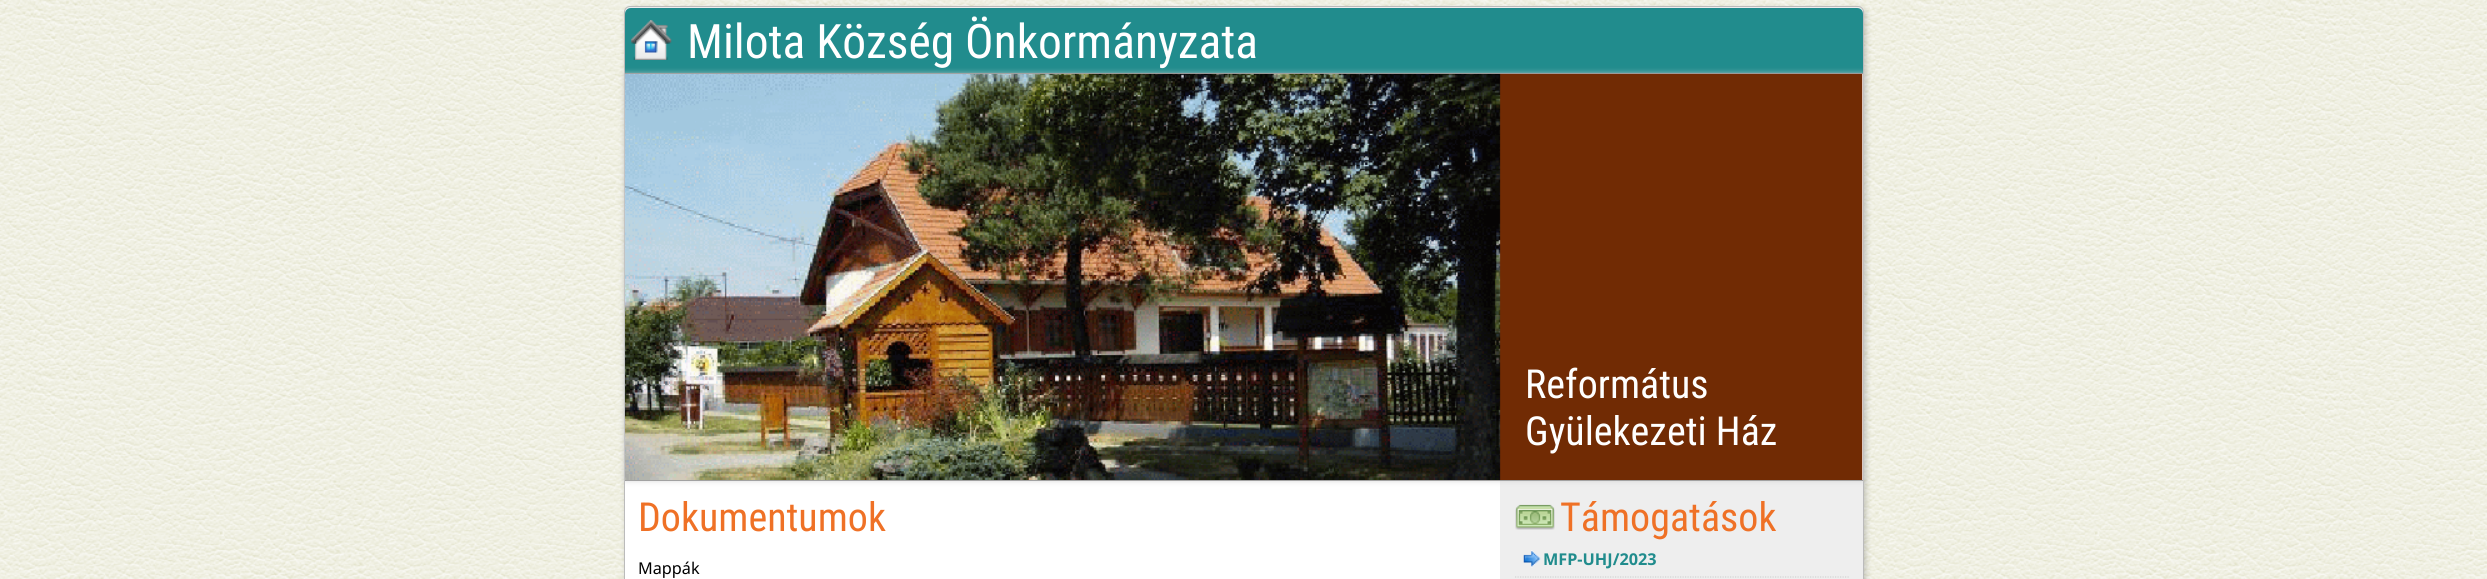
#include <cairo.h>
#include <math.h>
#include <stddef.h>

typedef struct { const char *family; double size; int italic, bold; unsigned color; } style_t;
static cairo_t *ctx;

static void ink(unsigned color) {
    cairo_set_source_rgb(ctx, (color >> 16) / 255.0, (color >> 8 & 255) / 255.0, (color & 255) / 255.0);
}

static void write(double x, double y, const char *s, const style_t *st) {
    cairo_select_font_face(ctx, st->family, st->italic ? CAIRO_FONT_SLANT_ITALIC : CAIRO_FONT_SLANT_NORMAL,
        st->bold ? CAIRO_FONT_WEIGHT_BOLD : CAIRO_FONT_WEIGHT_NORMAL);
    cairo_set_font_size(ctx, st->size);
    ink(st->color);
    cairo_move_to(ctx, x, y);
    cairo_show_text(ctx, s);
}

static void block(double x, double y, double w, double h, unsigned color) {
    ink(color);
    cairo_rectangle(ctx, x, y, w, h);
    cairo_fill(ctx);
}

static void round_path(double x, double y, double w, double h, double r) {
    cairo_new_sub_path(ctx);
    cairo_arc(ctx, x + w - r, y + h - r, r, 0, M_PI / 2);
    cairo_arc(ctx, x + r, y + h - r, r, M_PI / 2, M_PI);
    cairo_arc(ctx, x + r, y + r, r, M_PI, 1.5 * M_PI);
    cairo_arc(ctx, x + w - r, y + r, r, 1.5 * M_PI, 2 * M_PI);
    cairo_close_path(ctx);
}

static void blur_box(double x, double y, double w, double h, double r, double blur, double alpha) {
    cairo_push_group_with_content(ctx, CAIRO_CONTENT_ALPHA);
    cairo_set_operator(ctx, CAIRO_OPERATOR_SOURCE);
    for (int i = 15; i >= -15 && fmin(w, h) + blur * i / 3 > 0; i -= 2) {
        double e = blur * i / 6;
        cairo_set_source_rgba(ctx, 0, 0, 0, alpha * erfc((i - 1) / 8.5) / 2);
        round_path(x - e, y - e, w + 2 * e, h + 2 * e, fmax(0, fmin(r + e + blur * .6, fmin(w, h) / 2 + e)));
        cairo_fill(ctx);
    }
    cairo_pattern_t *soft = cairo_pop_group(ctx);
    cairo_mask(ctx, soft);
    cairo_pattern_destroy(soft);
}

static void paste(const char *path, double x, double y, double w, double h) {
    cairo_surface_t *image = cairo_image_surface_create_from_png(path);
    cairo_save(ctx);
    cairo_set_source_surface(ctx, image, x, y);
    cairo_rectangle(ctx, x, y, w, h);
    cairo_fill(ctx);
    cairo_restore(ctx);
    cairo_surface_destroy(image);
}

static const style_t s1 = {"Roboto Condensed", 47.5, 0, 0, 0xffffff};
static const style_t s2 = {"Roboto Condensed", 40, 0, 0, 0xffffff};
static const style_t s3 = {"Roboto Condensed", 40, 0, 0, 0xef7126};
static const style_t s4 = {"Noto Sans", 16.25, 0, 0, 0x000000};
static const style_t s5 = {"Noto Sans", 16.25, 0, 1, 0x218c8d};

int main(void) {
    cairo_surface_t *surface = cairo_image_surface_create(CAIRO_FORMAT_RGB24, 2487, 579);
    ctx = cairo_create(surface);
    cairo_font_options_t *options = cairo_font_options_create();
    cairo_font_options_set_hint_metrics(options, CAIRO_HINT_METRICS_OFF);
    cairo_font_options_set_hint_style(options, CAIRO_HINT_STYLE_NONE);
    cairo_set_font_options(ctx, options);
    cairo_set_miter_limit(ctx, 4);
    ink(0xffffff);
    cairo_paint(ctx);
    paste("pic1.png", 0, 0, 2487, 579);
    ink(0x000000);
    blur_box(626, 9, 1240, 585, 6, 3, 0.2);
    ink(0xeeeeee);
    round_path(624.5, 6.5, 1239, 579, 5.5);
    cairo_fill_preserve(ctx);
    ink(0xbbbbbb);
    cairo_set_line_width(ctx, 1);
    cairo_stroke(ctx);
    ink(0x218c8d);
    cairo_new_path(ctx);
    cairo_move_to(ctx, 631, 8);
    cairo_line_to(ctx, 1857, 8);
    cairo_curve_to(ctx, 1860.5, 8, 1863, 10.5, 1863, 14);
    cairo_line_to(ctx, 1863, 74);
    cairo_line_to(ctx, 625, 74);
    cairo_line_to(ctx, 625, 14);
    cairo_curve_to(ctx, 625, 10.5, 627.5, 8, 631, 8);
    cairo_close_path(ctx);
    cairo_fill(ctx);
    block(625, 73, 1238, 1, 0x808080);
    paste("pic2.png", 631, 20, 41, 40);
    write(687, 58, "Milota Község Önkormányzata", &s1);
    block(625, 480, 1238, 1, 0x808080);
    block(625, 481, 875, 98, 0xffffff);
    ink(0xcccccc);
    blur_box(625, 74, 1238, 406, 0, 3, 1);
    block(1862, 74, 1, 406, 0xffffff);
    paste("pic3.png", 625, 73, 1238, 407);
    write(1525, 398, "Református", &s2);
    write(1525, 445, "Gyülekezeti Ház", &s2);
    write(638, 531, "Dokumentumok", &s3);
    write(638, 574, "Mappák", &s4);
    paste("pic4.png", 1515, 504, 40, 26);
    write(1560, 531, "Támogatások", &s3);
    cairo_new_path(ctx);
    cairo_move_to(ctx, 1515, 577);
    cairo_line_to(ctx, 1850, 577);
    ink(0xd3d3d3);
    cairo_set_line_width(ctx, 1.2);
    cairo_set_dash(ctx, (double[]){1.25, 1.25}, 2, 0);
    cairo_stroke(ctx);
    paste("pic5.png", 1523, 550, 18, 18);
    write(1543, 565, "MFP-UHJ/2023", &s5);
    cairo_surface_write_to_png(surface, "screenshot.png");
    cairo_font_options_destroy(options);
    cairo_destroy(ctx);
    cairo_surface_destroy(surface);
    return 0;
}
